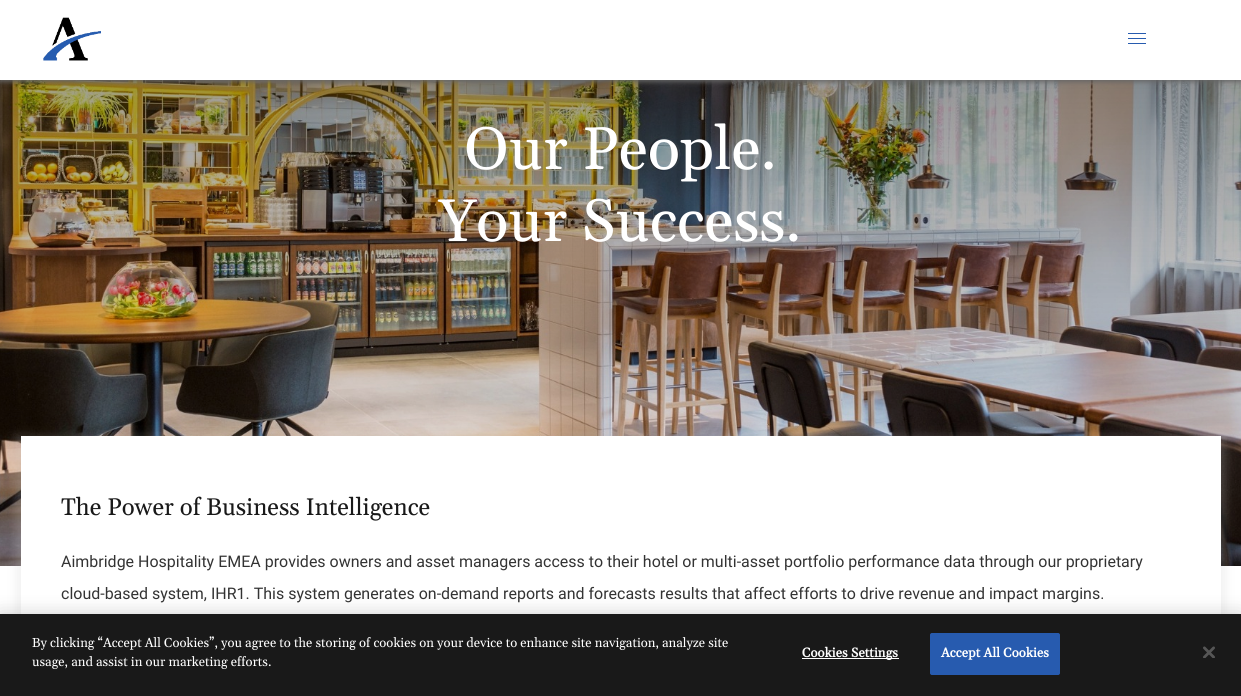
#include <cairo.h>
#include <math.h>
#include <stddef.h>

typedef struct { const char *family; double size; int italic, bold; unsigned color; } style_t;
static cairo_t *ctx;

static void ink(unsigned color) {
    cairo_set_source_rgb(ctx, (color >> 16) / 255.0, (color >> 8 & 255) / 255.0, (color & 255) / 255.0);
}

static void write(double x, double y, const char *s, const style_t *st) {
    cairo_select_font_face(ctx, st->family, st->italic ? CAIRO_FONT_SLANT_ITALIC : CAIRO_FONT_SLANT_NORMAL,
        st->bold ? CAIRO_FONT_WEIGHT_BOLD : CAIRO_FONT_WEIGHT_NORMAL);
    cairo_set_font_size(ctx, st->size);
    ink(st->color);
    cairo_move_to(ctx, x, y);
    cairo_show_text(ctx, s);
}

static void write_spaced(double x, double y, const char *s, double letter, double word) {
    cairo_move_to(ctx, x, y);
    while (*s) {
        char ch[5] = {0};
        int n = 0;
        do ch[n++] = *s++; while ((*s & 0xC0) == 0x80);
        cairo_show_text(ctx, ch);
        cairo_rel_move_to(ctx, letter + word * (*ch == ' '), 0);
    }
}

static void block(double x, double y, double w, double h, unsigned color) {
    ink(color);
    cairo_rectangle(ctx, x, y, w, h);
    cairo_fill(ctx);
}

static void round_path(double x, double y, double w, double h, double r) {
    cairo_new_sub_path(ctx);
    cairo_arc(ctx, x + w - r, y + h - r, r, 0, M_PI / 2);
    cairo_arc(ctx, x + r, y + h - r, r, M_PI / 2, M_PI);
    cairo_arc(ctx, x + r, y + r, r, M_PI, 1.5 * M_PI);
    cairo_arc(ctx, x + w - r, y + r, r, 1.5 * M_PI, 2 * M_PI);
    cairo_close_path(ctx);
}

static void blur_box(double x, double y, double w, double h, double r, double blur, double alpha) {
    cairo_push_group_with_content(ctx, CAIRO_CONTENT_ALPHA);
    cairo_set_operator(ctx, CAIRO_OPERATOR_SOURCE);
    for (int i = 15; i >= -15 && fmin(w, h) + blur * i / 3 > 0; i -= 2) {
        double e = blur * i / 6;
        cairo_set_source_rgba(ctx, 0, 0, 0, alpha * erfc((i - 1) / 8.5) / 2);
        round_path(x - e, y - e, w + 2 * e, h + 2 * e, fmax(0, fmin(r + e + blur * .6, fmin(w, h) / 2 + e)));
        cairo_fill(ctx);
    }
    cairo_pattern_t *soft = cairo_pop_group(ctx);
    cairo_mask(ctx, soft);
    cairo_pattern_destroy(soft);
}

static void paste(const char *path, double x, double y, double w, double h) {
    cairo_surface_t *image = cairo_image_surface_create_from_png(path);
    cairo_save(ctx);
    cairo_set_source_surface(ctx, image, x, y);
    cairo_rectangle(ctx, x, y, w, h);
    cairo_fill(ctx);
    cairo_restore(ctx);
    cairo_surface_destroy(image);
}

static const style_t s1 = {"Gelasio", 60, 0, 0, 0xffffff};
static const style_t s2 = {"Gelasio", 24, 0, 0, 0x191919};
static const style_t s3 = {"Roboto", 16, 0, 0, 0x333333};
static const style_t s4 = {"Gelasio", 13, 0, 0, 0xffffff};

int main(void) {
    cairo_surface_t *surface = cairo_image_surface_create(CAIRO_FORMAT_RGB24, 1241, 696);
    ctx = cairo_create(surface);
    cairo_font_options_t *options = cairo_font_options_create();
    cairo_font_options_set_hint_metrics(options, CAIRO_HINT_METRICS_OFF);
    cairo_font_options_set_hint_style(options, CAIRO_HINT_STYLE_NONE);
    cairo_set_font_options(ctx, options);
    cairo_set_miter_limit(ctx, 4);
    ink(0xffffff);
    cairo_paint(ctx);
    paste("pic2.png", 0, 80, 1241, 486);
    ink(0x666666);
    blur_box(0, 2, 1241, 80, 0, 2.5, 1);
    block(0, 0, 1241, 80, 0xffffff);
    paste("pic1.png", 43, 17, 58, 44);
    block(1128, 38, 18, 1, 0x275baf);
    block(1128, 33, 18, 1, 0x275baf);
    block(1128, 43, 18, 1, 0x275baf);
    write(464, 169, "Our People.", &s1);
    write(439, 241, "Your Success.", &s1);
    ink(0xc8c8c8);
    blur_box(16, 436, 1210, 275, 0, 5, 0.25);
    block(21, 436, 1200, 178, 0xffffff);
    write(61, 515, "The Power of Business Intelligence", &s2);
    write(61, 567, "Aimbridge Hospitality EMEA provides owners and asset managers access to their hotel or multi-asset portfolio performance data through our proprietary", &s3);
    write(61, 599, "cloud-based system, IHR1. This system generates on-demand reports and forecasts results that affect efforts to drive revenue and impact margins.", &s3);
    ink(0x000000);
    blur_box(0, 614, 1241, 82, 0, 9, 0.2);
    block(0, 614, 1241, 82, 0x191919);
    write(32, 647, "By clicking “Accept All Cookies”, you agree to the storing of cookies on your device to enhance site navigation, analyze site", &s4);
    write(32, 666, "usage, and assist in our marketing efforts.", &s4);
    block(802, 658, 97, 1, 0xffffff);
    cairo_select_font_face(ctx, "Gelasio", CAIRO_FONT_SLANT_NORMAL, CAIRO_FONT_WEIGHT_BOLD);
    write_spaced(802, 657, "Cookies Settings", 0.1, 0);
    ink(0x275baf);
    round_path(930.5, 633.5, 129, 41, 1.5);
    cairo_fill_preserve(ctx);
    cairo_set_line_width(ctx, 1);
    cairo_stroke(ctx);
    ink(0xffffff);
    write_spaced(941, 657, "Accept All Cookies", 0.1, 0);
    paste("pic3.png", 1203, 646, 12, 12);
    cairo_surface_write_to_png(surface, "screenshot.png");
    cairo_font_options_destroy(options);
    cairo_destroy(ctx);
    cairo_surface_destroy(surface);
    return 0;
}
